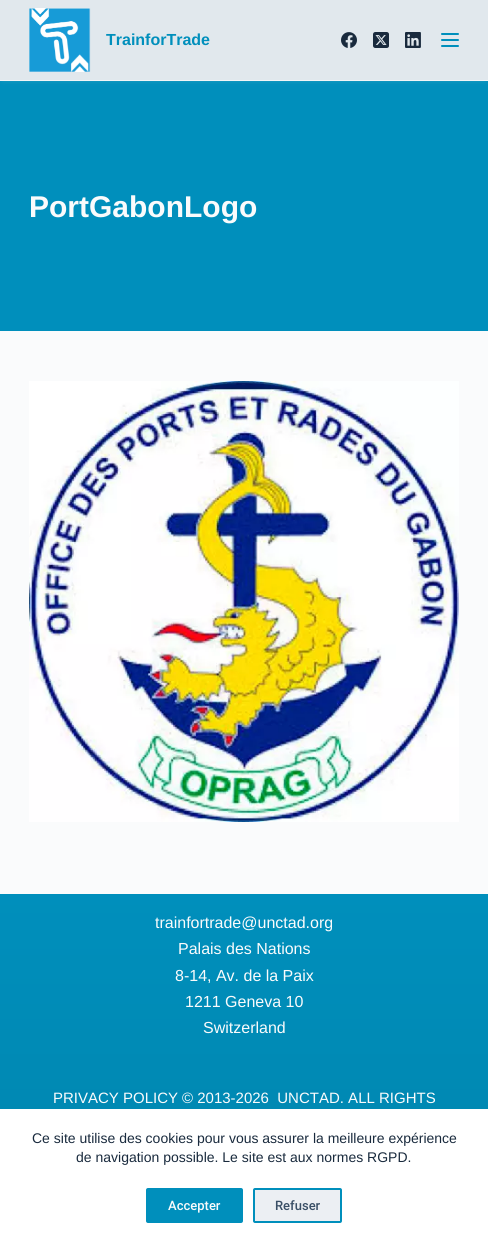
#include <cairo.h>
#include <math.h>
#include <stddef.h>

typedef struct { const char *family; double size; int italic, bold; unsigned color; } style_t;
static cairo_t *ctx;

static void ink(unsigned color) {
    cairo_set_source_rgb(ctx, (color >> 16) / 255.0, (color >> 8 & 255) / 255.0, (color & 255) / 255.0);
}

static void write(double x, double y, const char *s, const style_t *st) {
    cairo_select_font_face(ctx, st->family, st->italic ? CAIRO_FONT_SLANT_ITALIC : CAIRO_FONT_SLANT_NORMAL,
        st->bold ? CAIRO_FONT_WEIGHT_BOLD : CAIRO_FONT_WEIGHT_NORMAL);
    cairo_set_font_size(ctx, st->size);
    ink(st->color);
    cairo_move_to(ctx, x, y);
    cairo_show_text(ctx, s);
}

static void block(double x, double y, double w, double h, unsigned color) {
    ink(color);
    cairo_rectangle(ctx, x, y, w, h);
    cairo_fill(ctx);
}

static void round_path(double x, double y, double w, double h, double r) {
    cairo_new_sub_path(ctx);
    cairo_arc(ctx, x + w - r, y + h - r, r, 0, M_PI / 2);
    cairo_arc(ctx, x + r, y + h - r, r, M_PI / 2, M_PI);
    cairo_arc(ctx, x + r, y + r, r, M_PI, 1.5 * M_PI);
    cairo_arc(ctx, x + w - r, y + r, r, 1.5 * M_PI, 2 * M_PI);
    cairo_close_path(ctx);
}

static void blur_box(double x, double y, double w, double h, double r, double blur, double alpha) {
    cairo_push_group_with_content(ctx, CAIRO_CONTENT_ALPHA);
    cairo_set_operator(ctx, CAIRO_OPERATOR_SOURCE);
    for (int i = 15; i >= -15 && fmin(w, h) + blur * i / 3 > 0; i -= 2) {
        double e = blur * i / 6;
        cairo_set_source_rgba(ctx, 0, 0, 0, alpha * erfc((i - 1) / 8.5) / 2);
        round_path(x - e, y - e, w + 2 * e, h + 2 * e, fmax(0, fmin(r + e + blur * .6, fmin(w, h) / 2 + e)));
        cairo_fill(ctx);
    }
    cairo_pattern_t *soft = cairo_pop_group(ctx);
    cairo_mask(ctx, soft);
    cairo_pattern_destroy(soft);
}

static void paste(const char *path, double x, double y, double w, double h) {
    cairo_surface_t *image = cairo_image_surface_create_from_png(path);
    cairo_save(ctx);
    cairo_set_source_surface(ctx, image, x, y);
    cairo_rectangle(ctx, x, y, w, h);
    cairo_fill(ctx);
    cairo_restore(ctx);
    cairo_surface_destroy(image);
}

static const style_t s1 = {"Liberation Sans", 16, 0, 1, 0x008fbc};
static const style_t s2 = {"Liberation Sans", 30, 0, 1, 0xfafbfc};
static const style_t s3 = {"Liberation Sans", 16, 0, 0, 0xfafbfc};
static const style_t s4 = {"Liberation Sans", 15, 0, 0, 0xfafbfc};
static const style_t s5 = {"Liberation Sans", 14, 0, 0, 0x192a3d};
static const style_t s6 = {"Roboto Medium", 13, 0, 0, 0xfafbfc};
static const style_t s7 = {"Roboto Medium", 13, 0, 0, 0x3a4f66};

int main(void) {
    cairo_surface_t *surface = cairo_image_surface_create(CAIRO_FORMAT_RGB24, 488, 1243);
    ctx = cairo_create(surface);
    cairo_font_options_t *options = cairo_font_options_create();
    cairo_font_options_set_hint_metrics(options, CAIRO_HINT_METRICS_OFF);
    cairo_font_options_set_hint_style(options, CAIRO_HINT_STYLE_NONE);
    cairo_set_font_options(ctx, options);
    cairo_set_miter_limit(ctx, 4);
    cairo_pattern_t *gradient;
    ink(0xfafbfc);
    cairo_paint(ctx);
    block(0, 81, 488, 250, 0x008fbc);
    ink(0xe1e8ed);
    blur_box(3, 3, 482, 75, 0, 3, 0.5);
    block(0, 0, 488, 80, 0xe1e8ed);
    block(0, 80, 488, 1, 0xf2f5f7);
    paste("pic1.png", 29, 8, 62, 64);
    write(106, 45, "TrainforTrade", &s1);
    paste("pic2.png", 341, 32, 16, 16);
    paste("pic3.png", 373, 32, 16, 16);
    paste("pic4.png", 405, 32, 16, 16);
    round_path(441, 33, 18, 2, 1);
    cairo_fill(ctx);
    round_path(441, 39, 18, 2, 1);
    cairo_fill(ctx);
    round_path(441, 45, 18, 2, 1);
    cairo_fill(ctx);
    write(29, 217, "PortGabonLogo", &s2);
    paste("pic5.png", 29, 381, 430, 441);
    gradient = cairo_pattern_create_linear(244, 894, 244, 1243);
    cairo_pattern_add_color_stop_rgba(gradient, 0, 0, 0.561, 0.737, 1);
    cairo_pattern_add_color_stop_rgba(gradient, 1, 0, 0.522, 0.682, 1);
    cairo_set_source(ctx, gradient);
    cairo_pattern_destroy(gradient);
    cairo_rectangle(ctx, 0, 894, 488, 215);
    cairo_fill(ctx);
    write(155, 928, "trainfortrade@unctad.org", &s3);
    write(178, 954, "Palais des Nations", &s3);
    write(175, 981, "8-14, Av. de la Paix", &s3);
    write(185, 1007, "1211 Geneva 10", &s3);
    write(203, 1033, "Switzerland", &s3);
    write(53, 1103, "PRIVACY POLICY", &s4);
    write(182, 1103, "© 2013-2026  UNCTAD. ALL RIGHTS", &s4);
    block(0, 1109, 488, 134, 0xffffff);
    write(32, 1143, "Ce site utilise des cookies pour vous assurer la meilleure expérience", &s5);
    write(76, 1162, "de navigation possible. Le site est aux normes RGPD.", &s5);
    ink(0x008fbc);
    round_path(147, 1189, 95, 33, 1);
    cairo_fill_preserve(ctx);
    cairo_stroke(ctx);
    write(168, 1210, "Accepter", &s6);
    ink(0xeceff3);
    round_path(254, 1189, 87, 33, 1);
    cairo_fill_preserve(ctx);
    ink(0x008fbc);
    cairo_stroke(ctx);
    write(275, 1210, "Refuser", &s7);
    cairo_surface_write_to_png(surface, "screenshot.png");
    cairo_font_options_destroy(options);
    cairo_destroy(ctx);
    cairo_surface_destroy(surface);
    return 0;
}
